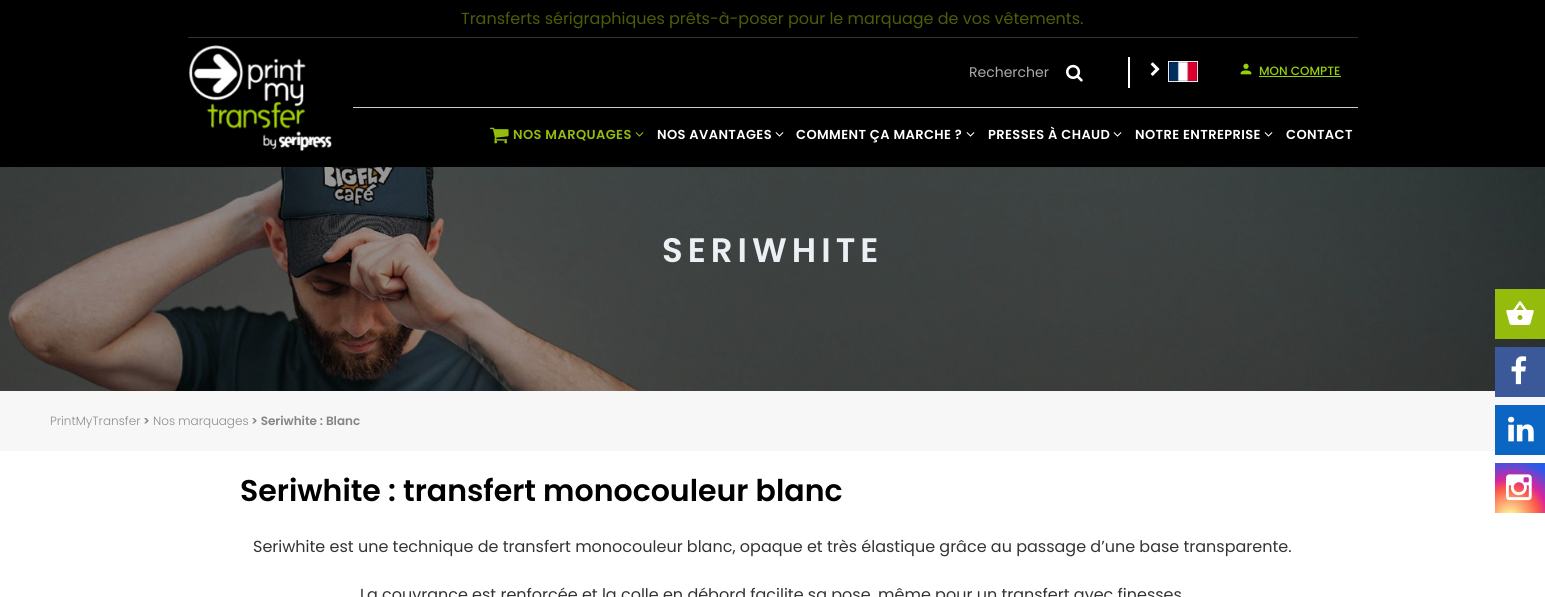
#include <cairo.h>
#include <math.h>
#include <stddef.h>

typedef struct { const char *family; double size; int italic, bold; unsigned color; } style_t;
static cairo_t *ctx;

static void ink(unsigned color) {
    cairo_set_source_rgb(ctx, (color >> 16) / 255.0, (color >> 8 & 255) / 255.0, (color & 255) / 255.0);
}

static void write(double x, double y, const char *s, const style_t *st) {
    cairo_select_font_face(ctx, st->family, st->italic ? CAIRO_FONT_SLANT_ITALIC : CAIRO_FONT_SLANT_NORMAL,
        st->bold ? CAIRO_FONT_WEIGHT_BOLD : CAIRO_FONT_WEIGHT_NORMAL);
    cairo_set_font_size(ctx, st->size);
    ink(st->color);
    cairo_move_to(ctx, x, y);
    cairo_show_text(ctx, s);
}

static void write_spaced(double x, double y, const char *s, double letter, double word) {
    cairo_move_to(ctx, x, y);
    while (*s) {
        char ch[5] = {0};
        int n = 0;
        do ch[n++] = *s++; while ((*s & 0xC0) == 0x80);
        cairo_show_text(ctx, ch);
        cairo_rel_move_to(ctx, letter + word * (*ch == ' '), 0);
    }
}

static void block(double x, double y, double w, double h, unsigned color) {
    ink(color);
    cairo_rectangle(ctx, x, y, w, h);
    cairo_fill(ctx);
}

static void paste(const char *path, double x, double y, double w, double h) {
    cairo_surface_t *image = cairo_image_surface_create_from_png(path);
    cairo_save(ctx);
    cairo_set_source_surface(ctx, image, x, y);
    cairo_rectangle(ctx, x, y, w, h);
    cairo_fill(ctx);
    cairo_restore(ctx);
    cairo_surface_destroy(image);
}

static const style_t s1 = {"Poppins", 16, 0, 0, 0x4b5e07};
static const style_t s2 = {"Poppins", 14, 0, 0, 0xababab};
static const style_t s3 = {"Poppins Medium", 12, 0, 0, 0x97d10d};
static const style_t s4 = {"Poppins Light", 12, 0, 0, 0x8c8c8c};
static const style_t s5 = {"Poppins SemiBold", 12, 0, 0, 0x848484};
static const style_t s6 = {"Poppins SemiBold", 30, 0, 0, 0x000000};
static const style_t s7 = {"Poppins", 16, 0, 0, 0x333333};

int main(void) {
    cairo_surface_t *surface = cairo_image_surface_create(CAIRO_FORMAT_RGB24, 1545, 597);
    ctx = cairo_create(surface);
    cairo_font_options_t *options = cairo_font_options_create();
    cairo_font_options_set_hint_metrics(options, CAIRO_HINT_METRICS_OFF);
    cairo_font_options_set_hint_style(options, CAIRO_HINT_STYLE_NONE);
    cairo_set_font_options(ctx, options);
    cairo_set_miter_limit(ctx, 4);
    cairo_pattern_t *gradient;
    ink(0xffffff);
    cairo_paint(ctx);
    block(0, 0, 1545, 167, 0x000000);
    block(188, 37, 1170, 1, 0x303030);
    write(461, 24, "Transferts sérigraphiques prêts-à-poser pour le marquage de vos vêtements.", &s1);
    paste("pic1.png", 188, 45, 144, 106);
    block(353, 107, 1005, 1, 0xcccccc);
    write(969, 77, "Rechercher", &s2);
    paste("pic2.png", 1066, 64, 17, 18);
    block(1128, 57, 2, 31, 0xffffff);
    cairo_rectangle(ctx, 1168.5, 61.5, 29, 20);
    cairo_set_line_width(ctx, 1);
    cairo_stroke(ctx);
    paste("pic3.png", 1150, 62, 10, 14);
    paste("pic4.png", 1168, 61, 30, 21);
    paste("pic5.png", 1240, 63, 12, 12);
    write(1259, 75, "MON COMPTE", &s3);
    block(1259, 76, 82, 1, 0x97d10d);
    paste("pic6.png", 490, 127, 19, 17);
    cairo_select_font_face(ctx, "Poppins SemiBold", CAIRO_FONT_SLANT_NORMAL, CAIRO_FONT_WEIGHT_NORMAL);
    cairo_set_font_size(ctx, 13);
    ink(0x95bc0d);
    write_spaced(513, 139, "NOS MARQUAGES", 0.4, 0);
    paste("pic7.png", 635, 132, 9, 5);
    ink(0xffffff);
    write_spaced(657, 139, "NOS AVANTAGES", 0.4, 0);
    paste("pic8.png", 775, 132, 9, 5);
    write_spaced(796, 139, "COMMENT ÇA MARCHE ?", 0.4, 0);
    paste("pic8.png", 966, 132, 9, 5);
    write_spaced(988, 139, "PRESSES À CHAUD", 0.4, 0);
    paste("pic8.png", 1113, 132, 9, 5);
    write_spaced(1135, 139, "NOTRE ENTREPRISE", 0.4, 0);
    paste("pic8.png", 1264, 132, 9, 5);
    write_spaced(1286, 139, "CONTACT", 0.4, 0);
    paste("pic13.png", 0, 167, 1545, 224);
    block(1495, 289, 50, 50, 0x95bc0d);
    paste("pic9.png", 1506, 301, 28, 24);
    block(0, 391, 1545, 60, 0xf7f7f7);
    block(1495, 347, 50, 50, 0x3b5998);
    paste("pic10.png", 1511, 356, 16, 29);
    block(1495, 405, 50, 50, 0x0a66c2);
    paste("pic11.png", 1508, 416, 26, 26);
    gradient = cairo_pattern_create_radial(1510, 517, 0, 1510, 517, 64);
    cairo_pattern_add_color_stop_rgba(gradient, 0, 0.992, 0.957, 0.592, 1);
    cairo_pattern_add_color_stop_rgba(gradient, 0.05, 0.992, 0.957, 0.592, 1);
    cairo_pattern_add_color_stop_rgba(gradient, 0.45, 0.992, 0.349, 0.286, 1);
    cairo_pattern_add_color_stop_rgba(gradient, 0.6, 0.839, 0.141, 0.624, 1);
    cairo_pattern_add_color_stop_rgba(gradient, 0.9, 0.157, 0.353, 0.922, 1);
    cairo_set_source(ctx, gradient);
    cairo_pattern_destroy(gradient);
    cairo_rectangle(ctx, 1495, 463, 50, 50);
    cairo_fill(ctx);
    paste("pic12.png", 1506, 474, 26, 27);
    cairo_set_font_size(ctx, 34);
    ink(0xeceff3);
    write_spaced(662, 262, "SERIWHITE", 5, 0);
    write(50, 425, "PrintMyTransfer", &s4);
    write(143, 425, ">", &s5);
    write(153, 425, "Nos marquages", &s4);
    write(251, 425, "> Seriwhite : Blanc", &s5);
    write(240, 501, "Seriwhite : transfert monocouleur blanc", &s6);
    write(253, 552, "Seriwhite est une technique de transfert monocouleur blanc, opaque et très élastique grâce au passage d’une base transparente.", &s7);
    write(360, 600, "La couvrance est renforcée et la colle en débord facilite sa pose, même pour un transfert avec finesses", &s7);
    cairo_surface_write_to_png(surface, "screenshot.png");
    cairo_font_options_destroy(options);
    cairo_destroy(ctx);
    cairo_surface_destroy(surface);
    return 0;
}
